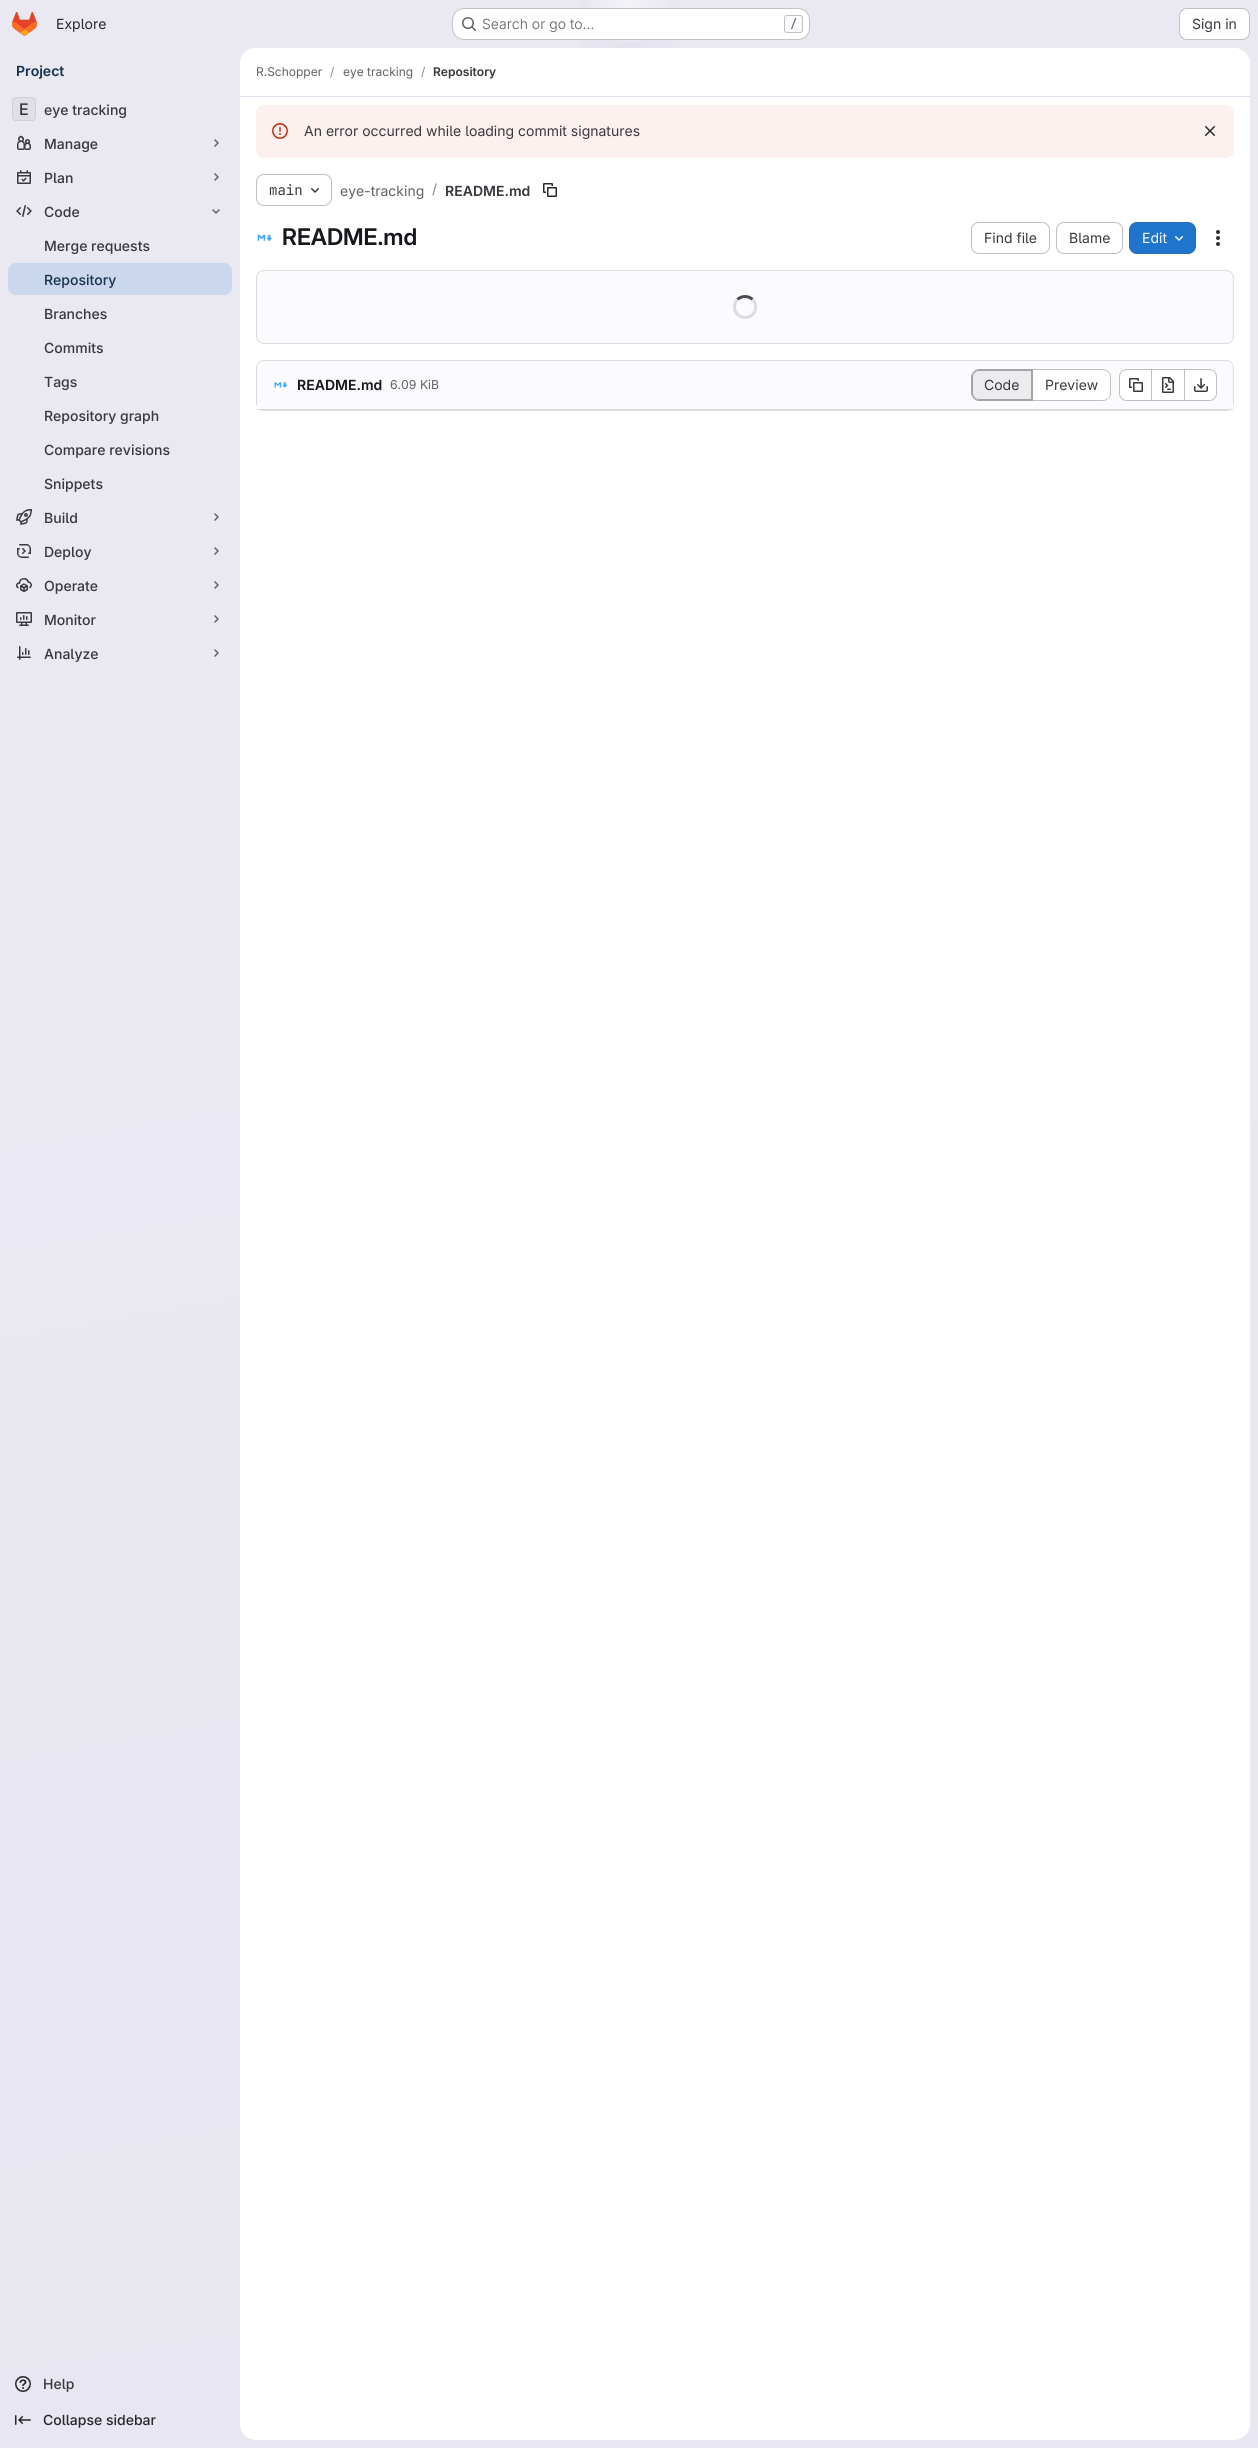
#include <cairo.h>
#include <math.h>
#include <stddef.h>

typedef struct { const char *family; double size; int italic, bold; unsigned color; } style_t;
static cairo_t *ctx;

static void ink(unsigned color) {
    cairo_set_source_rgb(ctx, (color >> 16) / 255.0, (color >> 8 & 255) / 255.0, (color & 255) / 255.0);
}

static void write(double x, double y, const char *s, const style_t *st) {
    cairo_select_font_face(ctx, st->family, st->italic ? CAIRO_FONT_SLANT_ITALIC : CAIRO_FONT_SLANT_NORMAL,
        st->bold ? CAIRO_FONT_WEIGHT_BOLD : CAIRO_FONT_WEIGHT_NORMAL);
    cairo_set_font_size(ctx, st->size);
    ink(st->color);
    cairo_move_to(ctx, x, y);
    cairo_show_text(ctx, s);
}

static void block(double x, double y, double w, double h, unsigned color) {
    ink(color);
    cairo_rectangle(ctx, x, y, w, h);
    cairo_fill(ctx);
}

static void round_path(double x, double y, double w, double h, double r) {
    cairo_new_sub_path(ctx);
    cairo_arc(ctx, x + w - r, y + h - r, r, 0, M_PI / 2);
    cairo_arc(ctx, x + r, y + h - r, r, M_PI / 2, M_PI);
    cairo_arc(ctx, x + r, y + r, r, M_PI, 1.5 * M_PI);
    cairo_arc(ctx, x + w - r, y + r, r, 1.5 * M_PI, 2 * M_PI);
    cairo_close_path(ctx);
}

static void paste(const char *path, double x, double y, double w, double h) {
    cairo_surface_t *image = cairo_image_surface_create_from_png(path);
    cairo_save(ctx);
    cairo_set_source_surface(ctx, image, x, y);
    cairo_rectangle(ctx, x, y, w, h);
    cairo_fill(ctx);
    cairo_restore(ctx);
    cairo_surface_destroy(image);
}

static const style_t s1 = {"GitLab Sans", 14, 0, 0, 0x28272d};
static const style_t s2 = {"GitLab Sans Light", 14, 0, 0, 0x626168};
static const style_t s3 = {"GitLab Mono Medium", 12, 0, 0, 0x626168};
static const style_t s4 = {"GitLab Sans", 14, 0, 0, 0x3a383f};
static const style_t s5 = {"GitLab Sans SemiBold", 14, 0, 0, 0x18334e};
static const style_t s6 = {"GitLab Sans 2 Medium", 16, 0, 0, 0x3a383f};
static const style_t s7 = {"GitLab Sans Medium", 14, 0, 0, 0x3a383f};
static const style_t s8 = {"GitLab Sans Medium", 14, 0, 0, 0x18334e};
static const style_t s9 = {"GitLab Sans Medium", 14, 0, 0, 0x28272d};
static const style_t s10 = {"GitLab Sans", 12, 0, 0, 0x626168};
static const style_t s11 = {"GitLab Sans", 12, 0, 0, 0x89888d};
static const style_t s12 = {"GitLab Sans SemiBold", 12, 0, 0, 0x3a383f};
static const style_t s13 = {"GitLab Mono", 14, 0, 0, 0x3a383f};
static const style_t s14 = {"GitLab Sans", 14, 0, 0, 0x626168};
static const style_t s15 = {"GitLab Sans", 14, 0, 0, 0x89888d};
static const style_t s16 = {"GitLab Sans SemiBold", 14, 0, 0, 0x3a383f};
static const style_t s17 = {"GitLab Sans 2 SemiBold", 23, 0, 0, 0x18171d};
static const style_t s18 = {"GitLab Sans", 14, 0, 0, 0xffffff};
static const style_t s19 = {"GitLab Sans SemiBold", 14, 0, 0, 0x18171d};
static const style_t s20 = {"GitLab Sans", 12.25, 0, 0, 0x626168};

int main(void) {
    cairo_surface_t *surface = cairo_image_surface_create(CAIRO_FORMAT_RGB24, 1258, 2448);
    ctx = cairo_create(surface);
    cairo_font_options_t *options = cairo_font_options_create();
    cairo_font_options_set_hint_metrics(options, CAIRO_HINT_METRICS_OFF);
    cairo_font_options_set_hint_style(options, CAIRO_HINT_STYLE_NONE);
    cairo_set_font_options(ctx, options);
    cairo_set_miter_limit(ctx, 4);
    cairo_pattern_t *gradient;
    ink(0xffffff);
    cairo_paint(ctx);
    gradient = cairo_pattern_create_linear(857, 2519, 401, -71);
    cairo_pattern_add_color_stop_rgba(gradient, 0, 0.91, 0.902, 0.941, 1);
    cairo_pattern_add_color_stop_rgba(gradient, 0.7, 0.918, 0.914, 0.949, 1);
    cairo_set_source(ctx, gradient);
    cairo_pattern_destroy(gradient);
    cairo_rectangle(ctx, 0, 0, 1258, 2448);
    cairo_fill(ctx);
    gradient = cairo_pattern_create_radial(0, 0, 0, 0, 0, 1);
    cairo_pattern_set_matrix(gradient, &(cairo_matrix_t){1.0 / 629, 0, 0, 1.0 / 2448, -1.0 * 629 / 629, -1.0 * 0 / 2448});
    cairo_pattern_add_color_stop_rgba(gradient, 0, 0.894, 0.886, 0.929, 1);
    cairo_pattern_add_color_stop_rgba(gradient, 0.11, 0.894, 0.886, 0.929, 0);
    cairo_set_source(ctx, gradient);
    cairo_pattern_destroy(gradient);
    cairo_rectangle(ctx, 579, 0, 100, 48);
    cairo_fill(ctx);
    gradient = cairo_pattern_create_radial(0, 0, 0, 0, 0, 1);
    cairo_pattern_set_matrix(gradient, &(cairo_matrix_t){1.0 / 629, 0, 0, 1.0 / 2448, -1.0 * 629 / 629, -1.0 * 0 / 2448});
    cairo_pattern_add_color_stop_rgba(gradient, 0, 0.894, 0.886, 0.925, 1);
    cairo_pattern_add_color_stop_rgba(gradient, 0.08, 0.894, 0.886, 0.925, 0);
    cairo_set_source(ctx, gradient);
    cairo_pattern_destroy(gradient);
    cairo_rectangle(ctx, 609, 19, 40, 28);
    cairo_fill(ctx);
    gradient = cairo_pattern_create_radial(629, 0, 0, 629, 0, 2528);
    cairo_pattern_add_color_stop_rgba(gradient, 0, 1, 1, 1, 0.6);
    cairo_pattern_add_color_stop_rgba(gradient, 0.02, 1, 1, 1, 0);
    cairo_set_source(ctx, gradient);
    cairo_pattern_destroy(gradient);
    cairo_rectangle(ctx, 587, 0, 84, 43);
    cairo_fill(ctx);
    paste("pic1.png", 12, 12, 25, 24);
    write(56, 29, "Explore", &s1);
    ink(0xffffff);
    round_path(452, 8, 358, 32, 12);
    cairo_fill(ctx);
    round_path(452.5, 8.5, 357, 31, 11.5);
    cairo_set_source_rgba(ctx, 0.02, 0.02, 0.024, 0.24);
    cairo_set_line_width(ctx, 1);
    cairo_stroke(ctx);
    paste("pic2.png", 462, 17, 14, 14);
    write(482, 29, "Search or go to…", &s2);
    ink(0xfbfafd);
    round_path(784.5, 15.5, 18, 17, 2.5);
    cairo_fill_preserve(ctx);
    ink(0xbfbfc3);
    cairo_stroke(ctx);
    write(790, 28, "/", &s3);
    ink(0xffffff);
    round_path(1179.5, 8.5, 70, 31, 7.5);
    cairo_fill_preserve(ctx);
    ink(0xbfbfc3);
    cairo_stroke(ctx);
    write(1192, 29, "Sign in", &s4);
    write(16, 76, "Project", &s5);
    ink(0xe0dfe7);
    round_path(12, 97, 24, 24, 4);
    cairo_fill(ctx);
    round_path(12.5, 97.5, 23, 23, 3.5);
    cairo_set_source_rgba(ctx, 0.02, 0.02, 0.024, 0.08);
    cairo_stroke(ctx);
    write(19, 115, "E", &s6);
    write(44, 115, "eye tracking", &s7);
    paste("pic3.png", 17, 135, 14, 15);
    write(44, 149, "Manage", &s7);
    cairo_new_path(ctx);
    cairo_move_to(ctx, 215, 140);
    cairo_line_to(ctx, 218, 143);
    cairo_line_to(ctx, 215, 146);
    ink(0x626168);
    cairo_set_line_width(ctx, 1.5);
    cairo_set_line_cap(ctx, CAIRO_LINE_CAP_ROUND);
    cairo_set_line_join(ctx, CAIRO_LINE_JOIN_ROUND);
    cairo_stroke(ctx);
    paste("pic4.png", 17, 170, 14, 14);
    write(44, 183, "Plan", &s7);
    cairo_new_path(ctx);
    cairo_move_to(ctx, 215, 174);
    cairo_line_to(ctx, 218, 177);
    cairo_line_to(ctx, 215, 180);
    ink(0x626168);
    cairo_stroke(ctx);
    paste("pic5.png", 16, 205, 16, 12);
    write(44, 217, "Code", &s7);
    cairo_new_path(ctx);
    cairo_move_to(ctx, 219, 210);
    cairo_line_to(ctx, 216, 213);
    cairo_line_to(ctx, 213, 210);
    ink(0x626168);
    cairo_stroke(ctx);
    write(44, 251, "Merge requests", &s7);
    ink(0xcad7ec);
    round_path(8, 263, 224, 32, 8);
    cairo_fill(ctx);
    write(44, 285, "Repository", &s8);
    write(44, 319, "Branches", &s7);
    write(44, 353, "Commits", &s7);
    write(44, 387, "Tags", &s7);
    write(44, 421, "Repository graph", &s7);
    write(44, 455, "Compare revisions", &s7);
    write(44, 489, "Snippets", &s7);
    paste("pic6.png", 16, 509, 16, 16);
    write(44, 523, "Build", &s7);
    cairo_new_path(ctx);
    cairo_move_to(ctx, 215, 514);
    cairo_line_to(ctx, 218, 517);
    cairo_line_to(ctx, 215, 520);
    ink(0x626168);
    cairo_stroke(ctx);
    paste("pic7.png", 17, 544, 14, 14);
    write(44, 557, "Deploy", &s7);
    cairo_new_path(ctx);
    cairo_move_to(ctx, 215, 548);
    cairo_line_to(ctx, 218, 551);
    cairo_line_to(ctx, 215, 554);
    ink(0x626168);
    cairo_stroke(ctx);
    paste("pic8.png", 16, 578, 16, 15);
    write(44, 591, "Operate", &s7);
    cairo_new_path(ctx);
    cairo_move_to(ctx, 215, 582);
    cairo_line_to(ctx, 218, 585);
    cairo_line_to(ctx, 215, 588);
    ink(0x626168);
    cairo_stroke(ctx);
    paste("pic9.png", 16, 612, 16, 14);
    write(44, 625, "Monitor", &s7);
    cairo_new_path(ctx);
    cairo_move_to(ctx, 215, 616);
    cairo_line_to(ctx, 218, 619);
    cairo_line_to(ctx, 215, 622);
    ink(0x626168);
    cairo_stroke(ctx);
    paste("pic10.png", 17, 646, 14, 14);
    write(44, 659, "Analyze", &s7);
    cairo_new_path(ctx);
    cairo_move_to(ctx, 215, 650);
    cairo_line_to(ctx, 218, 653);
    cairo_line_to(ctx, 215, 656);
    ink(0x626168);
    cairo_stroke(ctx);
    paste("pic11.png", 15, 2376, 16, 16);
    write(43, 2389, "Help", &s7);
    paste("pic12.png", 15, 2415, 16, 10);
    write(43, 2425, "Collapse sidebar", &s9);
    ink(0xffffff);
    round_path(240, 48, 1010, 2392, 16);
    cairo_fill(ctx);
    cairo_new_path(ctx);
    cairo_move_to(ctx, 256, 48);
    cairo_line_to(ctx, 1234, 48);
    cairo_curve_to(ctx, 1243, 48, 1250, 55, 1250, 64);
    cairo_line_to(ctx, 1250, 97);
    cairo_line_to(ctx, 240, 97);
    cairo_line_to(ctx, 240, 64);
    cairo_curve_to(ctx, 240, 55, 247, 48, 256, 48);
    cairo_close_path(ctx);
    cairo_fill(ctx);
    block(240, 96, 1010, 1, 0xe1dfec);
    write(256, 76, "R.Schopper", &s10);
    write(330, 76, "/", &s11);
    write(343, 76, "eye tracking", &s10);
    write(421, 76, "/", &s11);
    write(433, 76, "Repository", &s12);
    ink(0xfcf1ef);
    round_path(256, 105, 978, 53, 8);
    cairo_fill(ctx);
    paste("pic13.png", 272, 123, 16, 16);
    write(304, 136, "An error occurred while loading commit signatures", &s4);
    paste("pic14.png", 1205, 126, 10, 10);
    round_path(256.5, 174.5, 75, 31, 7.5);
    ink(0xbfbfc3);
    cairo_set_line_width(ctx, 1);
    cairo_set_line_cap(ctx, CAIRO_LINE_CAP_BUTT);
    cairo_set_line_join(ctx, CAIRO_LINE_JOIN_MITER);
    cairo_stroke(ctx);
    write(269, 195, "main", &s13);
    paste("pic15.png", 311, 188, 8, 5);
    write(340, 196, "eye-tracking", &s14);
    write(432, 194, "/", &s15);
    write(445, 196, "README.md", &s16);
    paste("pic16.png", 543, 183, 14, 14);
    paste("pic17.png", 257, 234, 16, 8);
    write(282, 245, "README.md", &s17);
    round_path(971.5, 222.5, 78, 31, 7.5);
    ink(0xbfbfc3);
    cairo_stroke(ctx);
    write(984, 243, "Find file", &s4);
    round_path(1056.5, 222.5, 66, 31, 7.5);
    ink(0xbfbfc3);
    cairo_stroke(ctx);
    write(1069, 243, "Blame", &s4);
    ink(0x1f75cb);
    round_path(1129.5, 222.5, 66, 31, 7.5);
    cairo_fill_preserve(ctx);
    ink(0x2f68b4);
    cairo_stroke(ctx);
    write(1142, 243, "Edit", &s18);
    paste("pic18.png", 1175, 236, 8, 5);
    paste("pic19.png", 1216, 230, 4, 16);
    ink(0xfbfafd);
    round_path(256.5, 270.5, 977, 73, 7.5);
    cairo_fill_preserve(ctx);
    ink(0xdcdcde);
    cairo_stroke(ctx);
    cairo_new_path(ctx);
    cairo_move_to(ctx, 737.5, 299.5);
    cairo_curve_to(ctx, 741.5, 295.5, 748.5, 295.5, 752.5, 299.5);
    ink(0x4c4b51);
    cairo_set_line_width(ctx, 3);
    cairo_stroke(ctx);
    cairo_new_path(ctx);
    cairo_move_to(ctx, 752.5, 299.5);
    cairo_curve_to(ctx, 755, 302, 756, 305.5, 755.5, 309);
    cairo_curve_to(ctx, 753, 321.5, 734.5, 319.5, 734.5, 307);
    cairo_curve_to(ctx, 734.5, 304, 735.5, 301.5, 737.5, 299.5);
    ink(0xdcdcde);
    cairo_stroke(ctx);
    round_path(256.5, 360.5, 977, 50, 7.5);
    cairo_set_line_width(ctx, 1);
    cairo_stroke(ctx);
    ink(0xfbfafd);
    cairo_new_path(ctx);
    cairo_move_to(ctx, 264, 361);
    cairo_line_to(ctx, 1226, 361);
    cairo_curve_to(ctx, 1230, 361, 1233, 364, 1233, 368);
    cairo_line_to(ctx, 1233, 410);
    cairo_line_to(ctx, 257, 410);
    cairo_line_to(ctx, 257, 368);
    cairo_curve_to(ctx, 257, 364, 260, 361, 264, 361);
    cairo_close_path(ctx);
    cairo_fill(ctx);
    block(257, 409, 976, 1, 0xdcdcde);
    paste("pic20.png", 274, 382, 14, 6);
    write(297, 390, "README.md", &s19);
    write(390, 389, "6.09 KiB", &s20);
    ink(0xececef);
    cairo_new_path(ctx);
    cairo_move_to(ctx, 979, 370.5);
    cairo_line_to(ctx, 1031.5, 370.5);
    cairo_line_to(ctx, 1031.5, 399.5);
    cairo_line_to(ctx, 979, 399.5);
    cairo_curve_to(ctx, 975.5, 399.5, 972.5, 396.5, 972.5, 393);
    cairo_line_to(ctx, 972.5, 377);
    cairo_curve_to(ctx, 972.5, 373.5, 975.5, 370.5, 979, 370.5);
    cairo_close_path(ctx);
    cairo_fill_preserve(ctx);
    ink(0xa4a3a8);
    cairo_stroke(ctx);
    cairo_set_fill_rule(ctx, CAIRO_FILL_RULE_EVEN_ODD);
    cairo_new_path(ctx);
    cairo_move_to(ctx, 979, 369);
    cairo_line_to(ctx, 1032, 369);
    cairo_line_to(ctx, 1032, 401);
    cairo_line_to(ctx, 979, 401);
    cairo_curve_to(ctx, 975, 401, 971, 397, 971, 393);
    cairo_line_to(ctx, 971, 377);
    cairo_curve_to(ctx, 971, 373, 975, 369, 979, 369);
    cairo_close_path(ctx);
    cairo_move_to(ctx, 979, 370);
    cairo_line_to(ctx, 1032, 370);
    cairo_line_to(ctx, 1032, 400);
    cairo_line_to(ctx, 979, 400);
    cairo_curve_to(ctx, 975, 400, 972, 397, 972, 393);
    cairo_line_to(ctx, 972, 377);
    cairo_curve_to(ctx, 972, 373, 975, 370, 979, 370);
    cairo_close_path(ctx);
    cairo_fill(ctx);
    write(984, 390, "Code", &s4);
    ink(0xffffff);
    cairo_new_path(ctx);
    cairo_move_to(ctx, 1033, 370);
    cairo_line_to(ctx, 1103, 370);
    cairo_curve_to(ctx, 1107, 370, 1110, 373, 1110, 377);
    cairo_line_to(ctx, 1110, 393);
    cairo_curve_to(ctx, 1110, 397, 1107, 400, 1103, 400);
    cairo_line_to(ctx, 1033, 400);
    cairo_close_path(ctx);
    cairo_fill(ctx);
    ink(0xbfbfc3);
    cairo_new_path(ctx);
    cairo_move_to(ctx, 1033, 369);
    cairo_line_to(ctx, 1103, 369);
    cairo_curve_to(ctx, 1107, 369, 1111, 373, 1111, 377);
    cairo_line_to(ctx, 1111, 393);
    cairo_curve_to(ctx, 1111, 397, 1107, 401, 1103, 401);
    cairo_line_to(ctx, 1033, 401);
    cairo_close_path(ctx);
    cairo_move_to(ctx, 1033, 370);
    cairo_line_to(ctx, 1103, 370);
    cairo_curve_to(ctx, 1107, 370, 1110, 373, 1110, 377);
    cairo_line_to(ctx, 1110, 393);
    cairo_curve_to(ctx, 1110, 397, 1107, 400, 1103, 400);
    cairo_line_to(ctx, 1033, 400);
    cairo_close_path(ctx);
    cairo_fill(ctx);
    block(1032, 369, 1, 32, 0xa4a3a8);
    write(1045, 390, "Preview", &s4);
    ink(0xffffff);
    cairo_new_path(ctx);
    cairo_move_to(ctx, 1127, 370);
    cairo_line_to(ctx, 1151, 370);
    cairo_line_to(ctx, 1151, 400);
    cairo_line_to(ctx, 1127, 400);
    cairo_curve_to(ctx, 1123, 400, 1120, 397, 1120, 393);
    cairo_line_to(ctx, 1120, 377);
    cairo_curve_to(ctx, 1120, 373, 1123, 370, 1127, 370);
    cairo_close_path(ctx);
    cairo_fill(ctx);
    ink(0xbfbfc3);
    cairo_new_path(ctx);
    cairo_move_to(ctx, 1127, 369);
    cairo_line_to(ctx, 1151, 369);
    cairo_line_to(ctx, 1151, 401);
    cairo_line_to(ctx, 1127, 401);
    cairo_curve_to(ctx, 1122.5, 401, 1119, 397.5, 1119, 393);
    cairo_line_to(ctx, 1119, 377);
    cairo_curve_to(ctx, 1119, 372.5, 1122.5, 369, 1127, 369);
    cairo_close_path(ctx);
    cairo_move_to(ctx, 1127, 370);
    cairo_line_to(ctx, 1151, 370);
    cairo_line_to(ctx, 1151, 400);
    cairo_line_to(ctx, 1127, 400);
    cairo_curve_to(ctx, 1123, 400, 1120, 397, 1120, 393);
    cairo_line_to(ctx, 1120, 377);
    cairo_curve_to(ctx, 1120, 373, 1123, 370, 1127, 370);
    cairo_close_path(ctx);
    cairo_fill(ctx);
    paste("pic21.png", 1129, 378, 14, 14);
    block(1152, 370, 32, 30, 0xffffff);
    block(1152, 369, 32, 1, 0xbfbfc3);
    block(1152, 400, 32, 1, 0xbfbfc3);
    block(1151, 369, 1, 32, 0xbfbfc3);
    paste("pic22.png", 1162, 377, 12, 16);
    ink(0xffffff);
    cairo_new_path(ctx);
    cairo_move_to(ctx, 1185, 370);
    cairo_line_to(ctx, 1209, 370);
    cairo_curve_to(ctx, 1213, 370, 1216, 373, 1216, 377);
    cairo_line_to(ctx, 1216, 393);
    cairo_curve_to(ctx, 1216, 397, 1213, 400, 1209, 400);
    cairo_line_to(ctx, 1185, 400);
    cairo_close_path(ctx);
    cairo_fill(ctx);
    ink(0xbfbfc3);
    cairo_new_path(ctx);
    cairo_move_to(ctx, 1185, 369);
    cairo_line_to(ctx, 1209, 369);
    cairo_curve_to(ctx, 1213.5, 369, 1217, 372.5, 1217, 377);
    cairo_line_to(ctx, 1217, 393);
    cairo_curve_to(ctx, 1217, 397.5, 1213.5, 401, 1209, 401);
    cairo_line_to(ctx, 1185, 401);
    cairo_close_path(ctx);
    cairo_move_to(ctx, 1185, 370);
    cairo_line_to(ctx, 1209, 370);
    cairo_curve_to(ctx, 1213, 370, 1216, 373, 1216, 377);
    cairo_line_to(ctx, 1216, 393);
    cairo_curve_to(ctx, 1216, 397, 1213, 400, 1209, 400);
    cairo_line_to(ctx, 1185, 400);
    cairo_close_path(ctx);
    cairo_fill(ctx);
    block(1184, 369, 1, 32, 0xbfbfc3);
    paste("pic23.png", 1194, 378, 14, 14);
    cairo_surface_write_to_png(surface, "screenshot.png");
    cairo_font_options_destroy(options);
    cairo_destroy(ctx);
    cairo_surface_destroy(surface);
    return 0;
}
